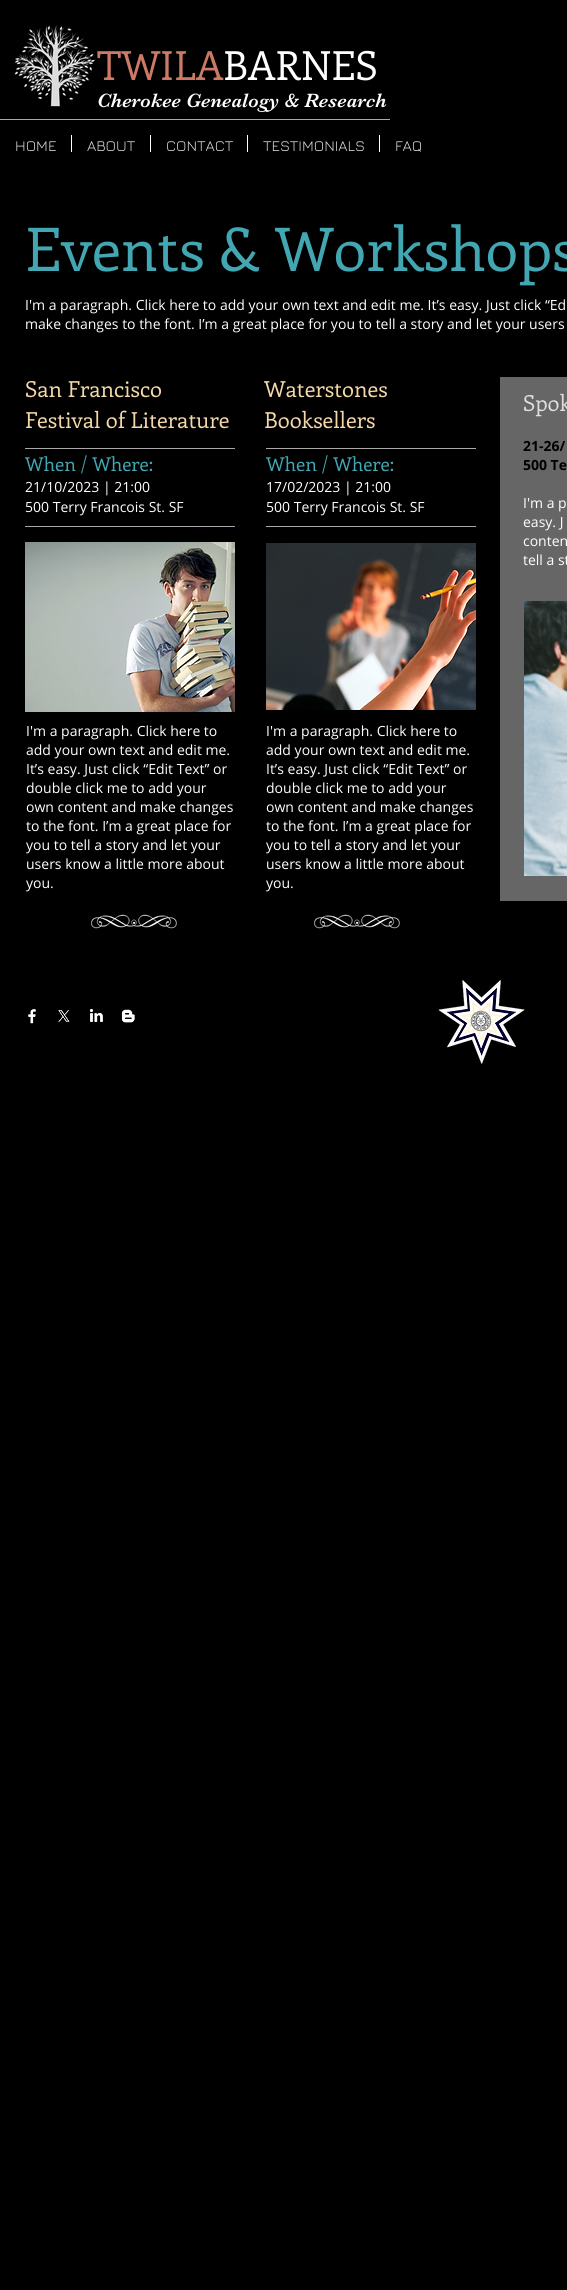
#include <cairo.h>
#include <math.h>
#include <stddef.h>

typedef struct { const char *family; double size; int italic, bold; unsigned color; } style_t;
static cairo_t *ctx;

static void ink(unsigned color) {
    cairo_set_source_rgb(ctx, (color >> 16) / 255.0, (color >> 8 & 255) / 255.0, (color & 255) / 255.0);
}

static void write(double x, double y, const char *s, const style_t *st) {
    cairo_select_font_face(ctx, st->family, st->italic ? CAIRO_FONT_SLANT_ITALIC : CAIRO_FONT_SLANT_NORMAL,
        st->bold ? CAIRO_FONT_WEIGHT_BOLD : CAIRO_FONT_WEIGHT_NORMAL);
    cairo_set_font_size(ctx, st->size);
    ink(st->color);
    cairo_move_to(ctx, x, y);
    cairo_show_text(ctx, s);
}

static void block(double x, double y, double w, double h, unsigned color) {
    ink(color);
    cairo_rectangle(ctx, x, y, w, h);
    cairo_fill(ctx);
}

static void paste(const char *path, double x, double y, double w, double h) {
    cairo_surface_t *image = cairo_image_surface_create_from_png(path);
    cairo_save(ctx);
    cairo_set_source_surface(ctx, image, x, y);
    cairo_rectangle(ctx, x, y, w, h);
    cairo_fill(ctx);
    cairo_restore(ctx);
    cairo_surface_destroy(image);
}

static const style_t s1 = {"Enriqueta", 40, 0, 0, 0xcc7a66};
static const style_t s2 = {"Enriqueta", 40, 0, 0, 0xffffff};
static const style_t s3 = {"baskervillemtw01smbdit", 20, 0, 0, 0xffffff};
static const style_t s4 = {"Jura", 15, 0, 0, 0xe0dddd};
static const style_t s5 = {"Enriqueta", 60, 0, 0, 0x42a7b2};
static const style_t s6 = {"Open Sans", 14, 0, 0, 0xffffff};
static const style_t s7 = {"Enriqueta", 22, 0, 0, 0xf4d8a8};
static const style_t s8 = {"Enriqueta", 22, 0, 0, 0xe0dddd};
static const style_t s9 = {"Open Sans", 14, 0, 1, 0x000000};
static const style_t s10 = {"Enriqueta", 19, 0, 0, 0x42a7b2};

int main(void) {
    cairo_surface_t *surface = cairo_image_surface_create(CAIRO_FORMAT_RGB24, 567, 2290);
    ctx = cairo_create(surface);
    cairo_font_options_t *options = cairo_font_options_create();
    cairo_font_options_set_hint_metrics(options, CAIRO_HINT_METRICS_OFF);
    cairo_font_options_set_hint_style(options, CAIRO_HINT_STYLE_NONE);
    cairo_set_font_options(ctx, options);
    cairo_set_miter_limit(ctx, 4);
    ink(0x000000);
    cairo_paint(ctx);
    paste("pic1.png", 14, 25, 81, 82);
    write(97, 80, "TWILA", &s1);
    write(223, 80, "BARNES", &s2);
    write(97, 107, "Cherokee Genealogy & Research", &s3);
    block(0, 119, 390, 1, 0xaaa8a8);
    write(15, 151, "HOME", &s4);
    block(71, 135, 1, 17, 0xffffff);
    write(87, 151, "ABOUT", &s4);
    block(150, 135, 1, 17, 0xffffff);
    write(166, 151, "CONTACT", &s4);
    block(247, 135, 1, 17, 0xffffff);
    write(263, 151, "TESTIMONIALS", &s4);
    block(379, 135, 1, 17, 0xffffff);
    write(395, 151, "FAQ", &s4);
    write(25, 271, "Events & Workshops", &s5);
    write(25, 310, "I'm a paragraph. Click here to add your own text and edit me. It’s easy. Just click “Ed", &s6);
    write(25, 329, "make changes to the font. I’m a great place for you to tell a story and let your users", &s6);
    write(25, 397, "San Francisco", &s7);
    write(25, 428, "Festival of Literature", &s7);
    write(264, 397, "Waterstones", &s7);
    write(264, 428, "Booksellers", &s7);
    block(500, 377, 67, 524, 0x666666);
    write(523, 411, "Spok", &s8);
    write(523, 451, "21-26/", &s9);
    write(523, 470, "500 Te", &s9);
    write(523, 508, "I'm a p", &s6);
    write(523, 527, "easy. J", &s6);
    write(523, 546, "conten", &s6);
    write(523, 565, "tell a st", &s6);
    paste("pic2.png", 524, 601, 43, 275);
    block(25, 448, 210, 1, 0xaaa8a8);
    block(266, 448, 210, 1, 0xaaa8a8);
    write(25, 471, "When / Where:", &s10);
    write(25, 492, "21/10/2023 | 21:00", &s6);
    write(25, 512, "500 Terry Francois St. SF", &s6);
    write(266, 471, "When / Where:", &s10);
    write(266, 492, "17/02/2023 | 21:00", &s6);
    write(266, 512, "500 Terry Francois St. SF", &s6);
    block(25, 526, 210, 1, 0xaaa8a8);
    block(266, 526, 210, 1, 0xaaa8a8);
    paste("pic3.png", 25, 542, 210, 170);
    paste("pic4.png", 266, 543, 210, 167);
    write(26, 736, "I'm a paragraph. Click here to", &s6);
    write(26, 755, "add your own text and edit me.", &s6);
    write(26, 774, "It’s easy. Just click “Edit Text” or", &s6);
    write(26, 793, "double click me to add your", &s6);
    write(26, 812, "own content and make changes", &s6);
    write(26, 831, "to the font. I’m a great place for", &s6);
    write(26, 850, "you to tell a story and let your", &s6);
    write(26, 869, "users know a little more about", &s6);
    write(26, 888, "you.", &s6);
    write(266, 736, "I'm a paragraph. Click here to", &s6);
    write(266, 755, "add your own text and edit me.", &s6);
    write(266, 774, "It’s easy. Just click “Edit Text” or", &s6);
    write(266, 793, "double click me to add your", &s6);
    write(266, 812, "own content and make changes", &s6);
    write(266, 831, "to the font. I’m a great place for", &s6);
    write(266, 850, "you to tell a story and let your", &s6);
    write(266, 869, "users know a little more about", &s6);
    write(266, 888, "you.", &s6);
    paste("pic5.png", 91, 914, 86, 15);
    paste("pic5.png", 314, 914, 86, 15);
    paste("pic6.png", 28, 1009, 8, 15);
    paste("pic7.png", 58, 1010, 12, 12);
    paste("pic8.png", 89, 1009, 14, 13);
    paste("pic9.png", 121, 1009, 14, 14);
    paste("pic10.png", 438, 980, 87, 84);
    paste("pic11.png", 470, 1010, 22, 22);
    cairo_surface_write_to_png(surface, "screenshot.png");
    cairo_font_options_destroy(options);
    cairo_destroy(ctx);
    cairo_surface_destroy(surface);
    return 0;
}
